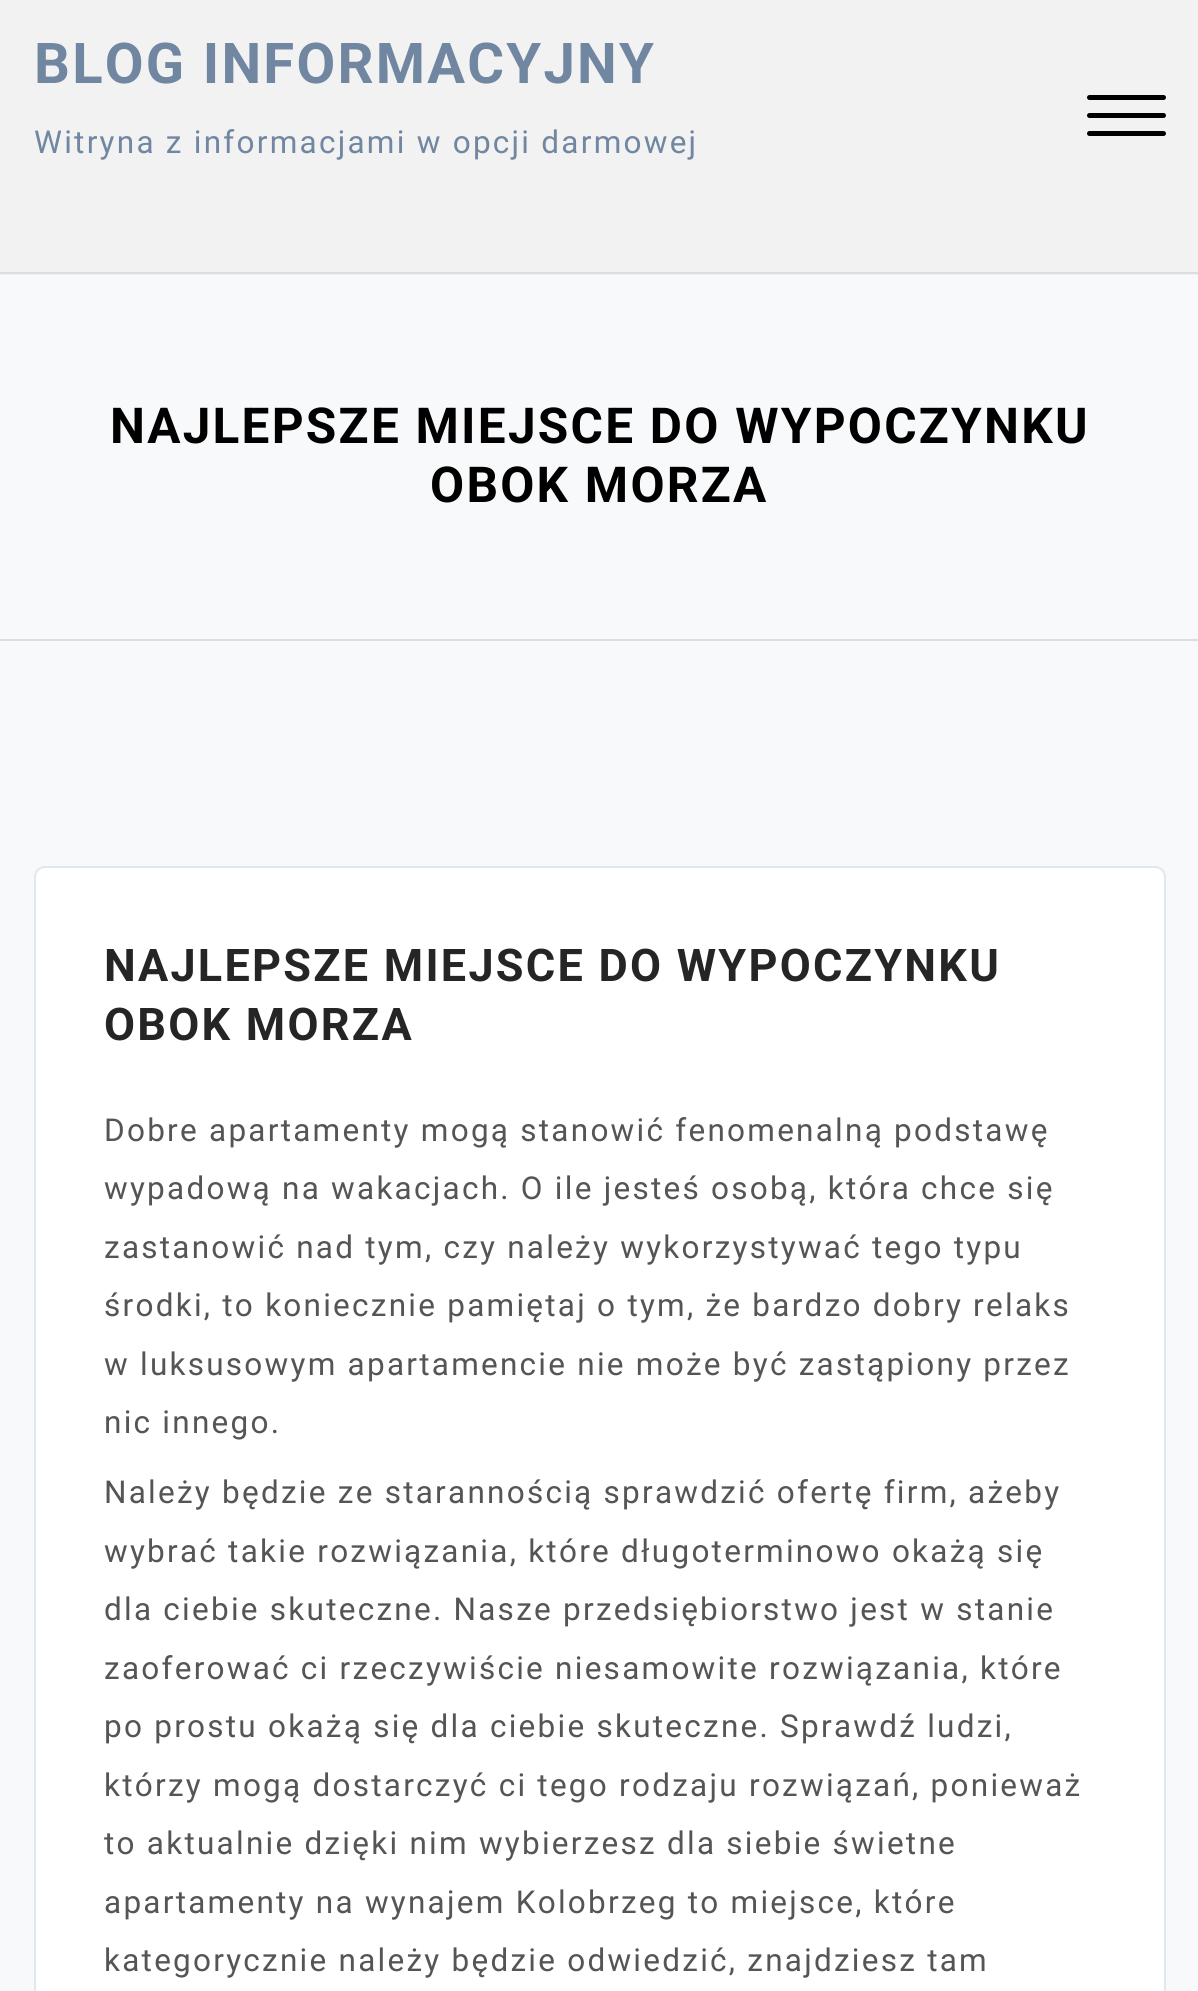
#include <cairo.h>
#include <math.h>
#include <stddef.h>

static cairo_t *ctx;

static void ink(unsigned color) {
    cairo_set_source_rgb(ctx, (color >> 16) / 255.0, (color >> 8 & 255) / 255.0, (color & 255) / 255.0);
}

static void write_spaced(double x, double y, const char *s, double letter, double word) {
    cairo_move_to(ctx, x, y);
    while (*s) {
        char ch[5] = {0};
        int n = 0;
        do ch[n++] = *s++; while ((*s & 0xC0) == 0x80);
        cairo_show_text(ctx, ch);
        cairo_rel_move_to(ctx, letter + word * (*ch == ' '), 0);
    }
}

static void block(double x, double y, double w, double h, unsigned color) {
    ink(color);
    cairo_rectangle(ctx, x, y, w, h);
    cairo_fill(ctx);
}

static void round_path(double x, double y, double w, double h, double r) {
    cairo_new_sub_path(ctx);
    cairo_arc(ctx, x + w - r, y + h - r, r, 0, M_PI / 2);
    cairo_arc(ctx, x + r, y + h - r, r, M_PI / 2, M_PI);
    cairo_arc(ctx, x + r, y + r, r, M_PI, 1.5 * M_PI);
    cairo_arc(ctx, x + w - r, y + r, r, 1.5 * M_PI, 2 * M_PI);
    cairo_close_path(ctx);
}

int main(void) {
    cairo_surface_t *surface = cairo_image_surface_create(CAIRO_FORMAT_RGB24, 1198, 1991);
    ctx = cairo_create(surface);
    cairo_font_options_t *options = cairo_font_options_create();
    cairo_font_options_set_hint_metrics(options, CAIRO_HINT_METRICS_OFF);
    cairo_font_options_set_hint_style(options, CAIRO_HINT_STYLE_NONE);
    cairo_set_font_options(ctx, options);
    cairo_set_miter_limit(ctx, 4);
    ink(0xf8f9fa);
    cairo_paint(ctx);
    block(0, 0, 1198, 275, 0xf2f2f2);
    block(0, 272, 1198, 2, 0xdddddd);
    cairo_select_font_face(ctx, "Roboto", CAIRO_FONT_SLANT_NORMAL, CAIRO_FONT_WEIGHT_BOLD);
    cairo_set_font_size(ctx, 56.25);
    ink(0x7086a1);
    write_spaced(34, 83, "BLOG INFORMACYJNY", 2.25, 0);
    cairo_select_font_face(ctx, "Roboto", CAIRO_FONT_SLANT_NORMAL, CAIRO_FONT_WEIGHT_NORMAL);
    cairo_set_font_size(ctx, 31.5);
    write_spaced(34, 153, "Witryna z informacjami w opcji darmowej", 2.25, 0);
    ink(0x000000);
    round_path(1087, 95, 79, 5, 2.5);
    cairo_fill(ctx);
    round_path(1087, 113, 79, 5, 2.5);
    cairo_fill(ctx);
    round_path(1087, 131, 79, 5, 2.5);
    cairo_fill(ctx);
    block(0, 639, 1198, 2, 0xdddddd);
    cairo_select_font_face(ctx, "Roboto", CAIRO_FONT_SLANT_NORMAL, CAIRO_FONT_WEIGHT_BOLD);
    cairo_set_font_size(ctx, 49.5);
    ink(0x000000);
    write_spaced(110, 443, "NAJLEPSZE MIEJSCE DO WYPOCZYNKU", 2.25, 0);
    write_spaced(430, 502, "OBOK MORZA", 2.25, 0);
    ink(0xffffff);
    round_path(35, 867, 1130, 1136, 10);
    cairo_fill_preserve(ctx);
    ink(0xe1e8ed);
    cairo_stroke(ctx);
    cairo_set_font_size(ctx, 45);
    ink(0x252525);
    write_spaced(104, 981, "NAJLEPSZE MIEJSCE DO WYPOCZYNKU", 2.25, 0);
    write_spaced(104, 1040, "OBOK MORZA", 2.25, 0);
    cairo_select_font_face(ctx, "Roboto", CAIRO_FONT_SLANT_NORMAL, CAIRO_FONT_WEIGHT_NORMAL);
    cairo_set_font_size(ctx, 31.5);
    ink(0x555555);
    write_spaced(104, 1141, "Dobre apartamenty mogą stanowić fenomenalną podstawę", 2.25, 0);
    write_spaced(104, 1199, "wypadową na wakacjach. O ile jesteś osobą, która chce się", 2.25, 0);
    write_spaced(104, 1258, "zastanowić nad tym, czy należy wykorzystywać tego typu", 2.25, 0);
    write_spaced(104, 1316, "środki, to koniecznie pamiętaj o tym, że bardzo dobry relaks", 2.25, 0);
    write_spaced(104, 1375, "w luksusowym apartamencie nie może być zastąpiony przez", 2.25, 0);
    write_spaced(104, 1433, "nic innego.", 2.25, 0);
    write_spaced(104, 1503, "Należy będzie ze starannością sprawdzić ofertę firm, ażeby", 2.25, 0);
    write_spaced(104, 1562, "wybrać takie rozwiązania, które długoterminowo okażą się", 2.25, 0);
    write_spaced(104, 1620, "dla ciebie skuteczne. Nasze przedsiębiorstwo jest w stanie", 2.25, 0);
    write_spaced(104, 1679, "zaoferować ci rzeczywiście niesamowite rozwiązania, które", 2.25, 0);
    write_spaced(104, 1737, "po prostu okażą się dla ciebie skuteczne. Sprawdź ludzi,", 2.25, 0);
    write_spaced(104, 1796, "którzy mogą dostarczyć ci tego rodzaju rozwiązań, ponieważ", 2.25, 0);
    write_spaced(104, 1854, "to aktualnie dzięki nim wybierzesz dla siebie świetne", 2.25, 0);
    write_spaced(104, 1913, "apartamenty na wynajem Kolobrzeg to miejsce, które", 2.25, 0);
    write_spaced(104, 1971, "kategorycznie należy będzie odwiedzić, znajdziesz tam", 2.25, 0);
    cairo_surface_write_to_png(surface, "screenshot.png");
    cairo_font_options_destroy(options);
    cairo_destroy(ctx);
    cairo_surface_destroy(surface);
    return 0;
}
